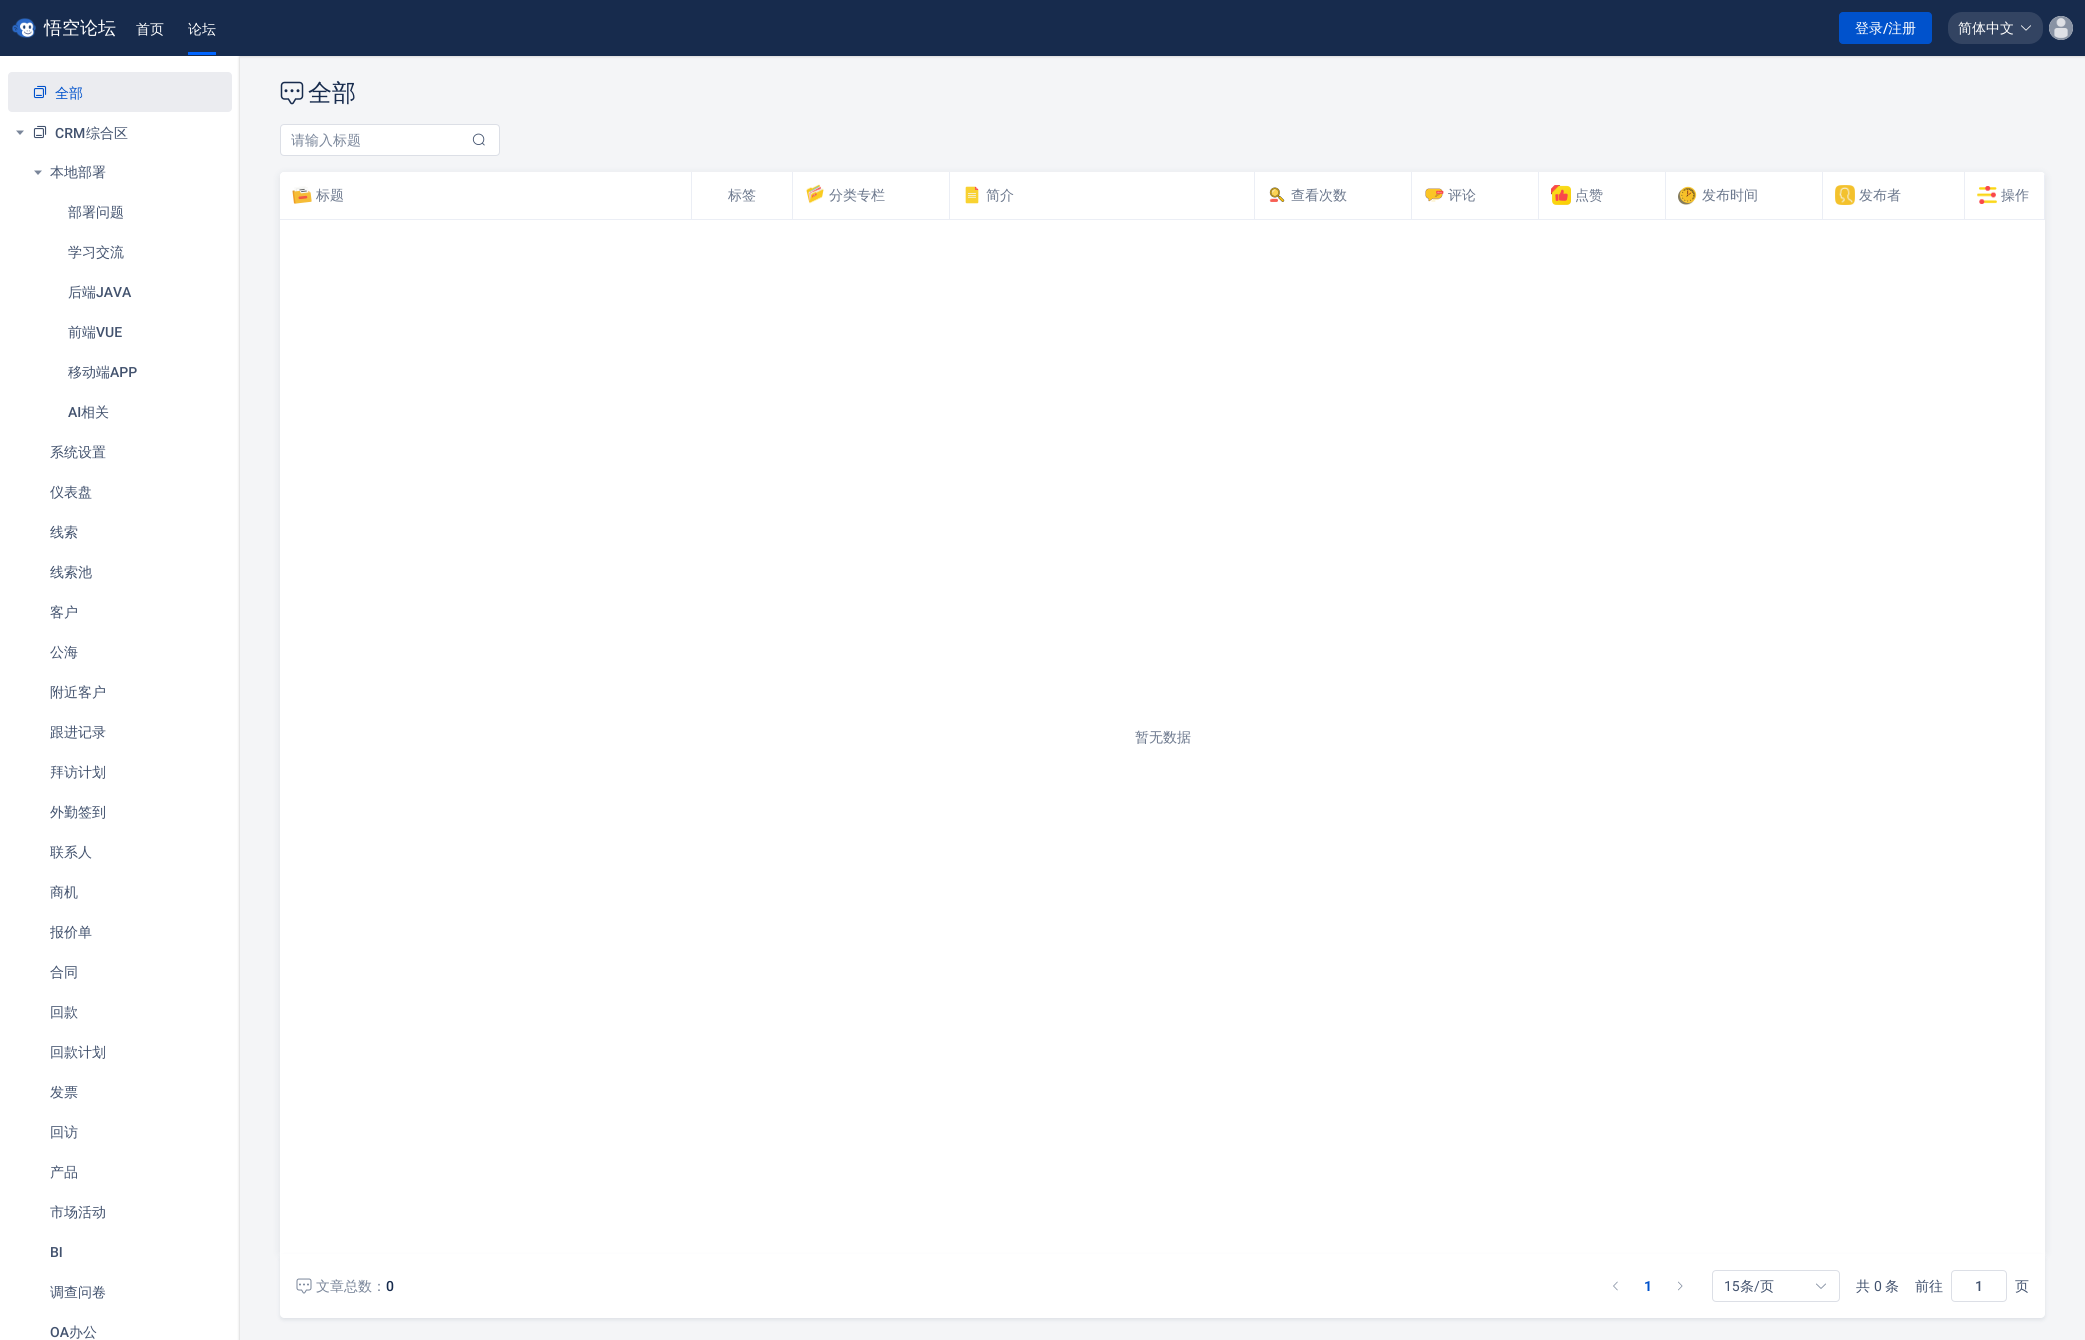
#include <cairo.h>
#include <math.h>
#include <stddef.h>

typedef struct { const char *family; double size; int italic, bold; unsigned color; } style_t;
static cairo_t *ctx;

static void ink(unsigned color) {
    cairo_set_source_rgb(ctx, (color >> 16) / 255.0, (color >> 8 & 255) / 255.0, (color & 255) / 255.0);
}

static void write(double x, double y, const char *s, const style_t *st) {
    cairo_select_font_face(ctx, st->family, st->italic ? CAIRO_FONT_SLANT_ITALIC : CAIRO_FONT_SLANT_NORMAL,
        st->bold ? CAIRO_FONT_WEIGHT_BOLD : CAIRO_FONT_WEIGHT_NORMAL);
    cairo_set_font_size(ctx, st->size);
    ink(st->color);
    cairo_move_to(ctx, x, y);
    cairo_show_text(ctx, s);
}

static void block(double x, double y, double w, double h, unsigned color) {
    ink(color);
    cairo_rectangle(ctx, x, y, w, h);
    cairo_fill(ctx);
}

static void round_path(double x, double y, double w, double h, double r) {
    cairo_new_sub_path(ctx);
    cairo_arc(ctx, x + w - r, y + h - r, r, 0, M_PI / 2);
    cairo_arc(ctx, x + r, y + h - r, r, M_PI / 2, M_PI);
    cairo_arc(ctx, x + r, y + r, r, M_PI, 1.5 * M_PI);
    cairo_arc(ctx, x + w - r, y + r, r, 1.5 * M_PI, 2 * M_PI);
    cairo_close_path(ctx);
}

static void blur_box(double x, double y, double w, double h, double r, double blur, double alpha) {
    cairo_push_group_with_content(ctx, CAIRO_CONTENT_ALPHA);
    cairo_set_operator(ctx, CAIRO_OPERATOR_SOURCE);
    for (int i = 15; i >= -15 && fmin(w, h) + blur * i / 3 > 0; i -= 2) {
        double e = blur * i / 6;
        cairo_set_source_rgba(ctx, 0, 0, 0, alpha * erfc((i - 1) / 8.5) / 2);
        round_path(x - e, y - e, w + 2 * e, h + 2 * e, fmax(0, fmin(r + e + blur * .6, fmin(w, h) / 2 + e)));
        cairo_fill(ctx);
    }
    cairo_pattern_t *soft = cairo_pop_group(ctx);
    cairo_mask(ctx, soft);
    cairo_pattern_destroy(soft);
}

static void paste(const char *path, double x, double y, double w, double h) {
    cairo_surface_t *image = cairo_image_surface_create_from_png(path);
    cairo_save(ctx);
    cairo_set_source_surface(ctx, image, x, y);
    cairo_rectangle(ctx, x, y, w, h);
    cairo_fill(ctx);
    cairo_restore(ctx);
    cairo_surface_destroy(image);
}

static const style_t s1 = {"WenQuanYi Zen Hei Medium", 18, 0, 0, 0xffffff};
static const style_t s2 = {"WenQuanYi Zen Hei Medium", 14, 0, 0, 0xffffff};
static const style_t s3 = {"Roboto Medium", 14, 0, 0, 0xffffff};
static const style_t s4 = {"WenQuanYi Zen Hei Medium", 14, 0, 0, 0x0052cc};
static const style_t s5 = {"Roboto Medium", 14, 0, 0, 0x42526e};
static const style_t s6 = {"WenQuanYi Zen Hei Medium", 14, 0, 0, 0x42526e};
static const style_t s7 = {"WenQuanYi Zen Hei Medium", 24, 0, 0, 0x172b4d};
static const style_t s8 = {"WenQuanYi Zen Hei Medium", 14, 0, 0, 0x7a869a};
static const style_t s9 = {"WenQuanYi Zen Hei Medium", 14, 0, 0, 0x6b778c};
static const style_t s10 = {"Roboto Medium", 14, 0, 0, 0x172b4d};
static const style_t s11 = {"Roboto", 14, 0, 1, 0x0052cc};
static const style_t s12 = {"Roboto", 14, 0, 0, 0x42526e};

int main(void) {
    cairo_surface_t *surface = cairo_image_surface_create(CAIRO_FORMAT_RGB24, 2085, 1340);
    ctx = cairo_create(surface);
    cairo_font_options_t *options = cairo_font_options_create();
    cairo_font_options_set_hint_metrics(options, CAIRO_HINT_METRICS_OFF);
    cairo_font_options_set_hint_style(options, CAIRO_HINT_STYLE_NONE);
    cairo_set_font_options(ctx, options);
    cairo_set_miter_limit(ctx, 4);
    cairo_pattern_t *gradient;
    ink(0xf4f5f7);
    cairo_paint(ctx);
    ink(0xdbdbdb);
    blur_box(0, 1, 2085, 56, 0, 1, 1);
    block(0, 0, 2085, 56, 0x172b4d);
    paste("pic1.png", 12, 18, 24, 20);
    write(44, 34, "悟空论坛", &s1);
    write(136, 34, "首页", &s2);
    write(188, 34, "论坛", &s2);
    block(188, 52, 28, 3, 0x0065ff);
    ink(0x0052cc);
    round_path(1839.5, 12.5, 92, 31, 3.5);
    cairo_fill_preserve(ctx);
    cairo_set_line_width(ctx, 1);
    cairo_stroke(ctx);
    write(1855, 33, "登录", &s2);
    write(1883, 33, "/", &s3);
    write(1888, 33, "注册", &s2);
    ink(0x334462);
    round_path(1948, 12, 95, 32, 14);
    cairo_fill(ctx);
    write(1958, 33, "简体中文", &s2);
    paste("pic2.png", 2021, 25, 10, 6);
    ink(0xdfe1e6);
    cairo_arc(ctx, 2061, 28, 12, 0, 2 * M_PI);
    cairo_fill(ctx);
    paste("pic3.png", 2049, 16, 24, 24);
    block(0, 56, 237, 1284, 0xffffff);
    ink(0xebecf0);
    round_path(8, 72, 224, 40, 4);
    cairo_fill(ctx);
    paste("pic4.png", 33, 85, 14, 14);
    write(55, 98, "全部", &s4);
    paste("pic5.png", 33, 125, 14, 14);
    ink(0x7a869a);
    cairo_new_path(ctx);
    cairo_move_to(ctx, 24, 130.5);
    cairo_line_to(ctx, 16, 130.5);
    cairo_line_to(ctx, 20, 135);
    cairo_close_path(ctx);
    cairo_move_to(ctx, 42, 170.5);
    cairo_line_to(ctx, 34, 170.5);
    cairo_line_to(ctx, 38, 175);
    cairo_close_path(ctx);
    cairo_fill(ctx);
    write(55, 138, "CRM", &s5);
    write(86, 138, "综合区", &s6);
    write(50, 177, "本地部署", &s6);
    write(68, 217, "部署问题", &s6);
    write(68, 257, "学习交流", &s6);
    write(68, 297, "后端", &s6);
    write(96, 297, "JAVA", &s5);
    write(68, 337, "前端", &s6);
    write(96, 337, "VUE", &s5);
    write(68, 377, "移动端", &s6);
    write(110, 377, "APP", &s5);
    write(68, 417, "AI", &s5);
    write(81, 417, "相关", &s6);
    write(50, 457, "系统设置", &s6);
    write(50, 497, "仪表盘", &s6);
    write(50, 537, "线索", &s6);
    write(50, 577, "线索池", &s6);
    write(50, 617, "客户", &s6);
    write(50, 657, "公海", &s6);
    write(50, 697, "附近客户", &s6);
    write(50, 737, "跟进记录", &s6);
    write(50, 777, "拜访计划", &s6);
    write(50, 817, "外勤签到", &s6);
    write(50, 857, "联系人", &s6);
    write(50, 897, "商机", &s6);
    write(50, 937, "报价单", &s6);
    write(50, 977, "合同", &s6);
    write(50, 1017, "回款", &s6);
    write(50, 1057, "回款计划", &s6);
    write(50, 1097, "发票", &s6);
    write(50, 1137, "回访", &s6);
    write(50, 1177, "产品", &s6);
    write(50, 1217, "市场活动", &s6);
    write(50, 1257, "BI", &s5);
    write(50, 1297, "调查问卷", &s6);
    write(50, 1337, "OA", &s5);
    write(69, 1337, "办公", &s6);
    gradient = cairo_pattern_create_linear(240, 698, 237, 698);
    cairo_pattern_add_color_stop_rgba(gradient, 0, 0.902, 0.902, 0.902, 1);
    cairo_pattern_add_color_stop_rgba(gradient, 0.33, 0.902, 0.902, 0.902, 1);
    cairo_pattern_add_color_stop_rgba(gradient, 0.33, 0.949, 0.949, 0.949, 1);
    cairo_pattern_add_color_stop_rgba(gradient, 1, 1, 1, 1, 1);
    cairo_set_source(ctx, gradient);
    cairo_pattern_destroy(gradient);
    cairo_rectangle(ctx, 237, 56, 3, 1284);
    cairo_fill(ctx);
    paste("pic6.png", 280, 81, 24, 24);
    write(308, 101, "全部", &s7);
    ink(0xffffff);
    round_path(280.5, 124.5, 219, 31, 3.5);
    cairo_fill_preserve(ctx);
    ink(0xdcdfe6);
    cairo_stroke(ctx);
    write(291, 145, "请输入标题", &s8);
    paste("pic7.png", 472, 133, 13, 13);
    ink(0x172b4d);
    blur_box(280, 174, 1765, 1082, 4, 4, 0.1);
    ink(0xffffff);
    cairo_new_path(ctx);
    cairo_move_to(ctx, 284, 172);
    cairo_line_to(ctx, 2041, 172);
    cairo_curve_to(ctx, 2043, 172, 2045, 174, 2045, 176);
    cairo_line_to(ctx, 2045, 1254);
    cairo_line_to(ctx, 280, 1254);
    cairo_line_to(ctx, 280, 176);
    cairo_curve_to(ctx, 280, 174, 282, 172, 284, 172);
    cairo_close_path(ctx);
    cairo_fill(ctx);
    cairo_new_path(ctx);
    cairo_move_to(ctx, 284, 172);
    cairo_line_to(ctx, 2041, 172);
    cairo_curve_to(ctx, 2043, 172, 2045, 174, 2045, 176);
    cairo_line_to(ctx, 2045, 220);
    cairo_line_to(ctx, 280, 220);
    cairo_line_to(ctx, 280, 176);
    cairo_curve_to(ctx, 280, 174, 282, 172, 284, 172);
    cairo_close_path(ctx);
    cairo_fill(ctx);
    block(691, 172, 1, 48, 0xebeef5);
    block(280, 219, 412, 1, 0xebeef5);
    paste("pic8.png", 292, 186, 20, 18);
    write(316, 200, "标题", &s9);
    block(792, 172, 1, 48, 0xebeef5);
    block(692, 219, 101, 1, 0xebeef5);
    write(728, 200, "标签", &s9);
    block(949, 172, 1, 48, 0xebeef5);
    block(793, 219, 157, 1, 0xebeef5);
    paste("pic9.png", 806, 184, 18, 20);
    write(829, 200, "分类专栏", &s9);
    block(1254, 172, 1, 48, 0xebeef5);
    block(950, 219, 305, 1, 0xebeef5);
    paste("pic10.png", 965, 186, 14, 18);
    write(986, 200, "简介", &s9);
    block(1411, 172, 1, 48, 0xebeef5);
    block(1255, 219, 157, 1, 0xebeef5);
    paste("pic11.png", 1269, 187, 16, 15);
    write(1291, 200, "查看次数", &s9);
    block(1538, 172, 1, 48, 0xebeef5);
    block(1412, 219, 127, 1, 0xebeef5);
    paste("pic12.png", 1425, 188, 19, 14);
    write(1448, 200, "评论", &s9);
    block(1665, 172, 1, 48, 0xebeef5);
    block(1539, 219, 127, 1, 0xebeef5);
    paste("pic13.png", 1551, 185, 20, 20);
    write(1575, 200, "点赞", &s9);
    block(1822, 172, 1, 48, 0xebeef5);
    block(1666, 219, 157, 1, 0xebeef5);
    paste("pic14.png", 1678, 186, 19, 19);
    write(1702, 200, "发布时间", &s9);
    block(1964, 172, 1, 48, 0xebeef5);
    block(1823, 219, 142, 1, 0xebeef5);
    paste("pic15.png", 1835, 185, 20, 20);
    write(1859, 200, "发布者", &s9);
    cairo_save(ctx);
    cairo_new_path(ctx);
    cairo_move_to(ctx, 284, 172);
    cairo_line_to(ctx, 2041, 172);
    cairo_curve_to(ctx, 2043, 172, 2045, 174, 2045, 176);
    cairo_line_to(ctx, 2045, 1254);
    cairo_line_to(ctx, 280, 1254);
    cairo_line_to(ctx, 280, 176);
    cairo_curve_to(ctx, 280, 174, 282, 172, 284, 172);
    cairo_close_path(ctx);
    cairo_clip(ctx);
    block(2044, 172, 1, 48, 0xebeef5);
    cairo_restore(ctx);
    block(1965, 219, 80, 1, 0xebeef5);
    paste("pic16.png", 1977, 186, 20, 18);
    write(2001, 200, "操作", &s9);
    write(1135, 742, "暂无数据", &s9);
    ink(0x172b4d);
    blur_box(280, 1256, 1765, 64, 4, 2, 0.1);
    ink(0xffffff);
    cairo_new_path(ctx);
    cairo_move_to(ctx, 280, 1254);
    cairo_line_to(ctx, 2045, 1254);
    cairo_line_to(ctx, 2045, 1314);
    cairo_curve_to(ctx, 2045, 1316, 2043, 1318, 2041, 1318);
    cairo_line_to(ctx, 284, 1318);
    cairo_curve_to(ctx, 282, 1318, 280, 1316, 280, 1314);
    cairo_close_path(ctx);
    cairo_fill(ctx);
    paste("pic17.png", 296, 1278, 16, 16);
    write(316, 1291, "文章总数：", &s8);
    write(386, 1291, "0", &s10);
    paste("pic18.png", 1613, 1281, 5, 10);
    write(1644, 1291, "1", &s11);
    paste("pic19.png", 1678, 1281, 5, 10);
    round_path(1712.5, 1270.5, 127, 31, 3.5);
    ink(0xdcdfe6);
    cairo_stroke(ctx);
    write(1724, 1291, "15", &s12);
    write(1740, 1291, "条", &s6);
    write(1754, 1291, "/", &s12);
    write(1760, 1291, "页", &s6);
    paste("pic20.png", 1816, 1283, 10, 6);
    write(1856, 1291, "共", &s6);
    write(1874, 1291, "0", &s12);
    write(1885, 1291, "条", &s6);
    write(1915, 1291, "前往", &s6);
    round_path(1951.5, 1270.5, 55, 31, 3.5);
    ink(0xdcdfe6);
    cairo_stroke(ctx);
    write(1975, 1291, "1", &s5);
    write(2015, 1291, "页", &s6);
    cairo_surface_write_to_png(surface, "screenshot.png");
    cairo_font_options_destroy(options);
    cairo_destroy(ctx);
    cairo_surface_destroy(surface);
    return 0;
}
